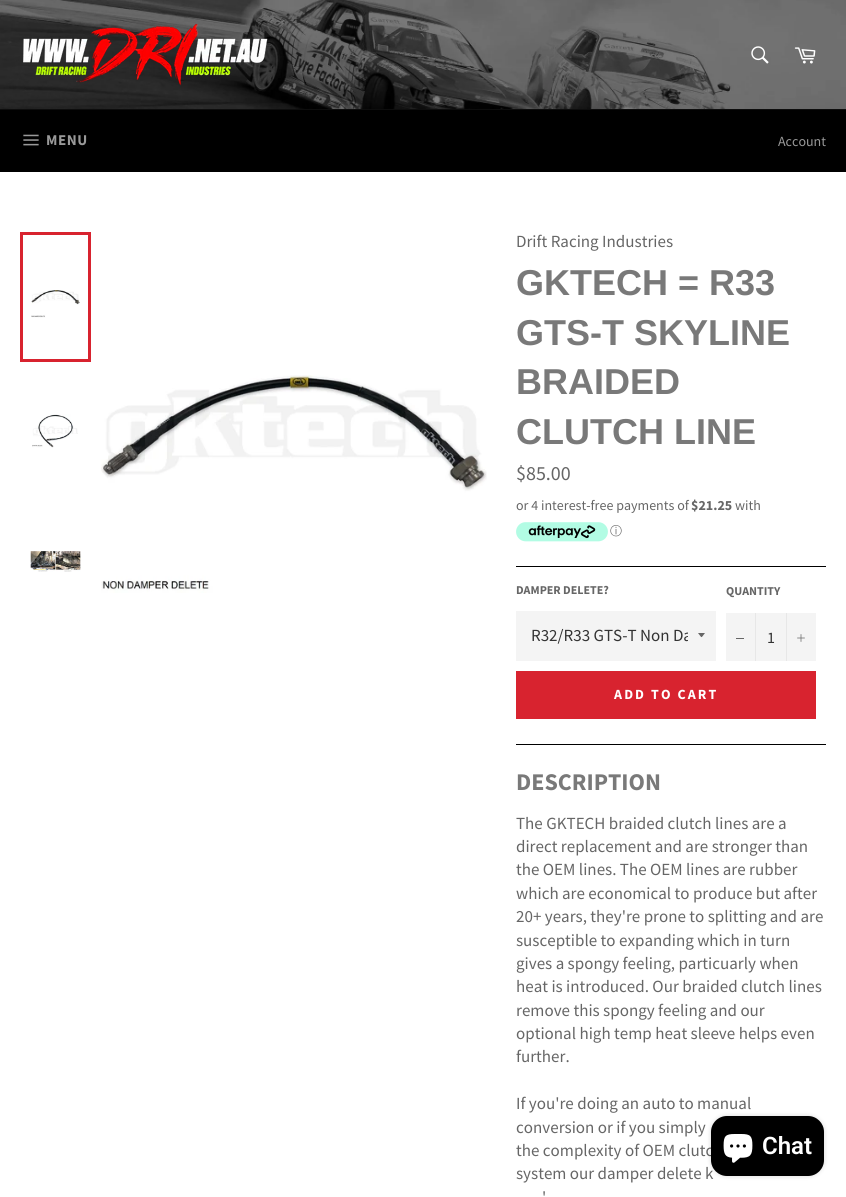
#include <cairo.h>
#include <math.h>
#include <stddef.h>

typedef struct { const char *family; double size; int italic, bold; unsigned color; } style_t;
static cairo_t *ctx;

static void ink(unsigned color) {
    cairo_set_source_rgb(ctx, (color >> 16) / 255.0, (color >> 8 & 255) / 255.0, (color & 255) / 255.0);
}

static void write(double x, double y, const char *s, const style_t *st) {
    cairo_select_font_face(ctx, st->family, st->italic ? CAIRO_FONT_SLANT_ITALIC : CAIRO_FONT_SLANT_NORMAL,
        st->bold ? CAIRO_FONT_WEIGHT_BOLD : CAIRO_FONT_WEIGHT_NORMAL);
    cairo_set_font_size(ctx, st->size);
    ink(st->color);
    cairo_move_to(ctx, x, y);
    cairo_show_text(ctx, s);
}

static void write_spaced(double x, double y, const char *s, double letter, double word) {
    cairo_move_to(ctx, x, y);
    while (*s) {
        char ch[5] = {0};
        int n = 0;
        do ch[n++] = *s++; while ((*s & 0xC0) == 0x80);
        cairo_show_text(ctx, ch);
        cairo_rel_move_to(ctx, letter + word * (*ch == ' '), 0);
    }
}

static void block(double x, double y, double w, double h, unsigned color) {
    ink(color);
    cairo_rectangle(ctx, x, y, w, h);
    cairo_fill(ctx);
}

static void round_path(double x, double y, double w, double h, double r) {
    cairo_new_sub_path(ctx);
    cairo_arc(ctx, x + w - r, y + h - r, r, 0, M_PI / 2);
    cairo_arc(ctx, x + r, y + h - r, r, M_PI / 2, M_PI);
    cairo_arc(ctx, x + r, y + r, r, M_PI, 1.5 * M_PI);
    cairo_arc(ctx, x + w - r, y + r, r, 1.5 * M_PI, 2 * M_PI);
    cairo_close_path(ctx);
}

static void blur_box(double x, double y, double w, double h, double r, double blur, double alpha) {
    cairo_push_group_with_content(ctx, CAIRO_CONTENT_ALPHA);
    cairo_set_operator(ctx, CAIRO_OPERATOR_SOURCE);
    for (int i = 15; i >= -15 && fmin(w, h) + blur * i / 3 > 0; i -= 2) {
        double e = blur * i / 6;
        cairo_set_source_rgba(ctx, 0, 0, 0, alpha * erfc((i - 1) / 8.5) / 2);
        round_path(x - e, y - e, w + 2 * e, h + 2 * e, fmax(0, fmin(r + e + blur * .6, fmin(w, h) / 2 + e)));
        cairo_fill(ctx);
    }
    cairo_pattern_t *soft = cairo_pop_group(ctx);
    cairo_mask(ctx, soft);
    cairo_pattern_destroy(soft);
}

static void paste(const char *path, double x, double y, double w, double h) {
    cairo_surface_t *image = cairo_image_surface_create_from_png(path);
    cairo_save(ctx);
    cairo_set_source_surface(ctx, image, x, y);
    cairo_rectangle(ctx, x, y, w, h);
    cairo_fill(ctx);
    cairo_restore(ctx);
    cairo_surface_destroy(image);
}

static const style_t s1 = {"Source Sans Pro", 14, 0, 0, 0x999999};
static const style_t s2 = {"Source Sans Pro", 17, 0, 0, 0x666666};
static const style_t s3 = {"Liberation Sans", 36, 0, 1, 0x797979};
static const style_t s4 = {"Source Sans Pro", 20, 0, 0, 0x666666};
static const style_t s5 = {"Source Sans Pro", 14, 0, 0, 0x666666};
static const style_t s6 = {"Source Sans Pro", 14, 0, 1, 0x666666};
static const style_t s7 = {"WenQuanYi Zen Hei Medium", 12, 0, 0, 0x666666};
static const style_t s8 = {"Source Sans Pro", 12, 0, 1, 0x666666};
static const style_t s9 = {"Source Sans Pro", 17, 0, 0, 0x333333};
static const style_t s10 = {"Source Sans Pro", 16, 0, 0, 0x333333};
static const style_t s11 = {"Source Sans Pro", 24, 0, 1, 0x797979};
static const style_t s12 = {"Roboto SemiBold", 24, 0, 0, 0xffffff};

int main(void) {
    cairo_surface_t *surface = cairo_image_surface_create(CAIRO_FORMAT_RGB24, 846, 1197);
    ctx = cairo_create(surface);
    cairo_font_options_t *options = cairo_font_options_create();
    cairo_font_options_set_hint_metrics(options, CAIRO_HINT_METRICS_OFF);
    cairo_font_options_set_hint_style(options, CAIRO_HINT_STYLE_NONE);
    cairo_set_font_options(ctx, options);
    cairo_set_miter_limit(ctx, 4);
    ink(0xffffff);
    cairo_paint(ctx);
    paste("pic1.png", 0, 0, 846, 109);
    paste("pic2.png", 23, 23, 245, 63);
    paste("pic3.png", 751, 46, 18, 18);
    paste("pic4.png", 794, 47, 22, 17);
    block(0, 110, 846, 62, 0x000000);
    block(0, 109, 846, 1, 0x0d0d0d);
    paste("pic5.png", 23, 134, 16, 12);
    cairo_select_font_face(ctx, "Source Sans Pro", CAIRO_FONT_SLANT_NORMAL, CAIRO_FONT_WEIGHT_BOLD);
    cairo_set_font_size(ctx, 15);
    ink(0x999999);
    write_spaced(46, 145, "MENU", 0.5, 0);
    write(778, 146, "Account", &s1);
    paste("pic6.png", 31, 290, 49, 28);
    cairo_rectangle(ctx, 21.5, 233.5, 68, 127);
    ink(0xd8232f);
    cairo_set_line_width(ctx, 3);
    cairo_stroke(ctx);
    paste("pic7.png", 32, 414, 46, 34);
    paste("pic8.png", 30, 551, 51, 21);
    paste("pic9.png", 101, 375, 386, 218);
    write(516, 247, "Drift Racing Industries", &s2);
    write(516, 295, "GKTECH = R33", &s3);
    write(516, 345, "GTS-T SKYLINE", &s3);
    write(516, 394, "BRAIDED", &s3);
    write(516, 444, "CLUTCH LINE", &s3);
    write(516, 480, "$85.00", &s4);
    write(516, 510, "or 4 interest-free payments of", &s5);
    write(691, 510, "$21.25", &s6);
    write(735, 510, "with", &s5);
    paste("pic10.png", 516, 522, 92, 20);
    write(610, 535, "ⓘ", &s7);
    block(516, 566, 310, 1, 0x000000);
    write(516, 594, "DAMPER DELETE?", &s8);
    block(516, 611, 200, 50, 0xf4f4f4);
    ink(0x666666);
    cairo_new_path(ctx);
    cairo_move_to(ctx, 698, 633);
    cairo_curve_to(ctx, 702.5, 638.5, 700.5, 638.5, 705, 633);
    cairo_close_path(ctx);
    cairo_fill(ctx);
    cairo_save(ctx);
    cairo_rectangle(ctx, 531, 624, 157, 24);
    cairo_clip(ctx);
    write(531, 641, "R32/R33 GTS-T Non Da", &s9);
    cairo_restore(ctx);
    write(726, 595, "QUANTITY", &s8);
    block(726, 613, 90, 48, 0xf4f4f4);
    block(755, 613, 1, 48, 0xe7e7e7);
    block(736, 638, 8, 1, 0x666666);
    write(767, 643, "1", &s10);
    block(786, 613, 1, 48, 0xe7e7e7);
    paste("pic11.png", 797, 634, 8, 8);
    block(516, 671, 300, 48, 0xd8232f);
    cairo_select_font_face(ctx, "Source Sans Pro", CAIRO_FONT_SLANT_NORMAL, CAIRO_FONT_WEIGHT_BOLD);
    cairo_set_font_size(ctx, 14);
    ink(0xffffff);
    write_spaced(614, 699, "ADD TO CART", 2.1, 0);
    block(516, 744, 310, 1, 0x000000);
    write(516, 790, "DESCRIPTION", &s11);
    write(516, 829, "The GKTECH braided clutch lines are a", &s2);
    write(516, 852, "direct replacement and are stronger than", &s2);
    write(516, 875, "the OEM lines. The OEM lines are rubber", &s2);
    write(516, 899, "which are economical to produce but after", &s2);
    write(516, 922, "20+ years, they're prone to splitting and are", &s2);
    write(516, 946, "susceptible to expanding which in turn", &s2);
    write(516, 969, "gives a spongy feeling, particuarly when", &s2);
    write(516, 992, "heat is introduced. Our braided clutch lines", &s2);
    write(516, 1016, "remove this spongy feeling and our", &s2);
    write(516, 1039, "optional high temp heat sleeve helps even", &s2);
    write(516, 1062, "further.", &s2);
    write(516, 1109, "If you're doing an auto to manual", &s2);
    write(516, 1133, "conversion or if you simply", &s2);
    write(516, 1156, "the complexity of OEM clutc", &s2);
    write(516, 1179, "system our damper delete k", &s2);
    write(542, 1203, "'", &s2);
    ink(0x000000);
    blur_box(711, 1116, 113, 60, 16, 2.5, 0.15);
    ink(0x000000);
    round_path(711, 1116, 113, 60, 16);
    cairo_fill(ctx);
    paste("pic12.png", 723, 1134, 30, 29);
    write(762, 1154, "Chat", &s12);
    cairo_surface_write_to_png(surface, "screenshot.png");
    cairo_font_options_destroy(options);
    cairo_destroy(ctx);
    cairo_surface_destroy(surface);
    return 0;
}
